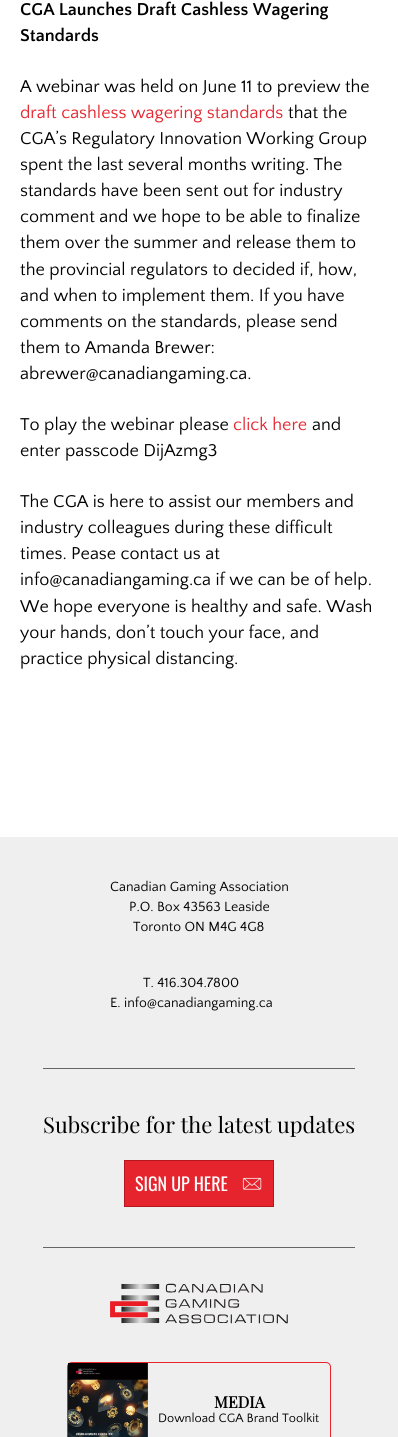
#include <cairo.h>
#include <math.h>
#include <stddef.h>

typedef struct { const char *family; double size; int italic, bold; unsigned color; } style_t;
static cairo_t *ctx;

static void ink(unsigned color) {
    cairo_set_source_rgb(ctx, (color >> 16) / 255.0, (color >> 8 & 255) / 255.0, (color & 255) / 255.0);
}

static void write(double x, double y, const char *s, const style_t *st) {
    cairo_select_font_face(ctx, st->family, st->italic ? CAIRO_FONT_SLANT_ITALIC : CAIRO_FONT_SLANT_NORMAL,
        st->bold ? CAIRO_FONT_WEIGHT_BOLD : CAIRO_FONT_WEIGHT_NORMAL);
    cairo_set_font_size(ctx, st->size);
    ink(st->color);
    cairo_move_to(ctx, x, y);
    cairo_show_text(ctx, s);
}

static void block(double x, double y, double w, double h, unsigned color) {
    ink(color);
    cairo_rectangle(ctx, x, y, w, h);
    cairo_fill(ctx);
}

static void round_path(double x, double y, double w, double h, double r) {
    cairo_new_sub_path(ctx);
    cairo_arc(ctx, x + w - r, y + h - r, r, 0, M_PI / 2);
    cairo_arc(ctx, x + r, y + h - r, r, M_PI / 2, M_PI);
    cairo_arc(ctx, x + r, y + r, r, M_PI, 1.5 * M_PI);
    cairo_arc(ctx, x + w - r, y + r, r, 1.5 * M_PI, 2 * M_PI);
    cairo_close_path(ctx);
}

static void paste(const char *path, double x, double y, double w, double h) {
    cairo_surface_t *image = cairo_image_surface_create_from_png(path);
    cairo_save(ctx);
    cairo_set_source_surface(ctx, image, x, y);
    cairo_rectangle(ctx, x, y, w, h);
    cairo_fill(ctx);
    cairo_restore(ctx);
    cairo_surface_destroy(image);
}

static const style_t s1 = {"Quattrocento Sans", 18, 0, 1, 0x000000};
static const style_t s2 = {"Quattrocento Sans", 18, 0, 0, 0x000000};
static const style_t s3 = {"Quattrocento Sans", 18, 0, 0, 0xe5242d};
static const style_t s4 = {"Quattrocento Sans", 14, 0, 0, 0x000000};
static const style_t s5 = {"Playfair Display", 22, 0, 0, 0x000000};
static const style_t s6 = {"Oswald", 18, 0, 0, 0xffffff};
static const style_t s7 = {"Playfair Display", 16, 0, 1, 0x000000};
static const style_t s8 = {"Quattrocento Sans", 12.75, 0, 0, 0x000000};

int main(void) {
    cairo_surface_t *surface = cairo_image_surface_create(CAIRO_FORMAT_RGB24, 398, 1437);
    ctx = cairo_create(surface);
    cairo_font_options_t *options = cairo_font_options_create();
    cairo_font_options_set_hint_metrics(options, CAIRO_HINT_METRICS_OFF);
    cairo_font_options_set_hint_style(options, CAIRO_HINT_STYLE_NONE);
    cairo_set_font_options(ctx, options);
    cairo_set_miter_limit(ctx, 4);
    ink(0xffffff);
    cairo_paint(ctx);
    write(20, 15, "CGA Launches Draft Cashless Wagering", &s1);
    write(20, 41, "Standards", &s1);
    write(20, 92, "A webinar was held on June 11 to preview the", &s2);
    write(20, 118, "draft cashless wagering standards", &s3);
    write(288, 118, "that the", &s2);
    write(20, 144, "CGA’s Regulatory Innovation Working Group", &s2);
    write(20, 170, "spent the last several months writing. The", &s2);
    write(20, 196, "standards have been sent out for industry", &s2);
    write(20, 222, "comment and we hope to be able to finalize", &s2);
    write(20, 248, "them over the summer and release them to", &s2);
    write(20, 275, "the provincial regulators to decided if, how,", &s2);
    write(20, 301, "and when to implement them. If you have", &s2);
    write(20, 327, "comments on the standards, please send", &s2);
    write(20, 353, "them to Amanda Brewer:", &s2);
    write(20, 379, "abrewer@canadiangaming.ca.", &s2);
    write(20, 430, "To play the webinar please", &s2);
    write(233, 430, "click here", &s3);
    write(312, 430, "and", &s2);
    write(20, 456, "enter passcode DijAzmg3", &s2);
    write(20, 507, "The CGA is here to assist our members and", &s2);
    write(20, 533, "industry colleagues during these difficult", &s2);
    write(20, 559, "times. Pease contact us at", &s2);
    write(20, 585, "info@canadiangaming.ca if we can be of help.", &s2);
    write(20, 612, "We hope everyone is healthy and safe. Wash", &s2);
    write(20, 638, "your hands, don’t touch your face, and", &s2);
    write(20, 664, "practice physical distancing.", &s2);
    block(0, 837, 398, 600, 0xefefef);
    write(110, 891, "Canadian Gaming Association", &s4);
    write(129, 911, "P.O. Box 43563 Leaside", &s4);
    write(133, 931, "Toronto ON M4G 4G8", &s4);
    write(143, 987, "T. 416.304.7800", &s4);
    write(110, 1007, "E. info@canadiangaming.ca", &s4);
    block(43, 1068, 312, 1, 0x666666);
    block(43, 1247, 312, 1, 0x666666);
    write(43, 1133, "Subscribe for the latest updates", &s5);
    ink(0xe5242d);
    cairo_rectangle(ctx, 124.5, 1160.5, 149, 46);
    cairo_fill_preserve(ctx);
    ink(0xb6161d);
    cairo_set_line_width(ctx, 1);
    cairo_stroke(ctx);
    write(135, 1191, "SIGN UP HERE", &s6);
    paste("pic1.png", 242, 1177, 20, 13);
    paste("pic2.png", 110, 1283, 178, 41);
    round_path(67.5, 1362.5, 263, 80, 4.5);
    ink(0xe5242d);
    cairo_stroke(ctx);
    paste("pic3.png", 68, 1363, 80, 74);
    write(214, 1408, "MEDIA", &s7);
    write(158, 1422, "Download CGA Brand Toolkit", &s8);
    cairo_surface_write_to_png(surface, "screenshot.png");
    cairo_font_options_destroy(options);
    cairo_destroy(ctx);
    cairo_surface_destroy(surface);
    return 0;
}
